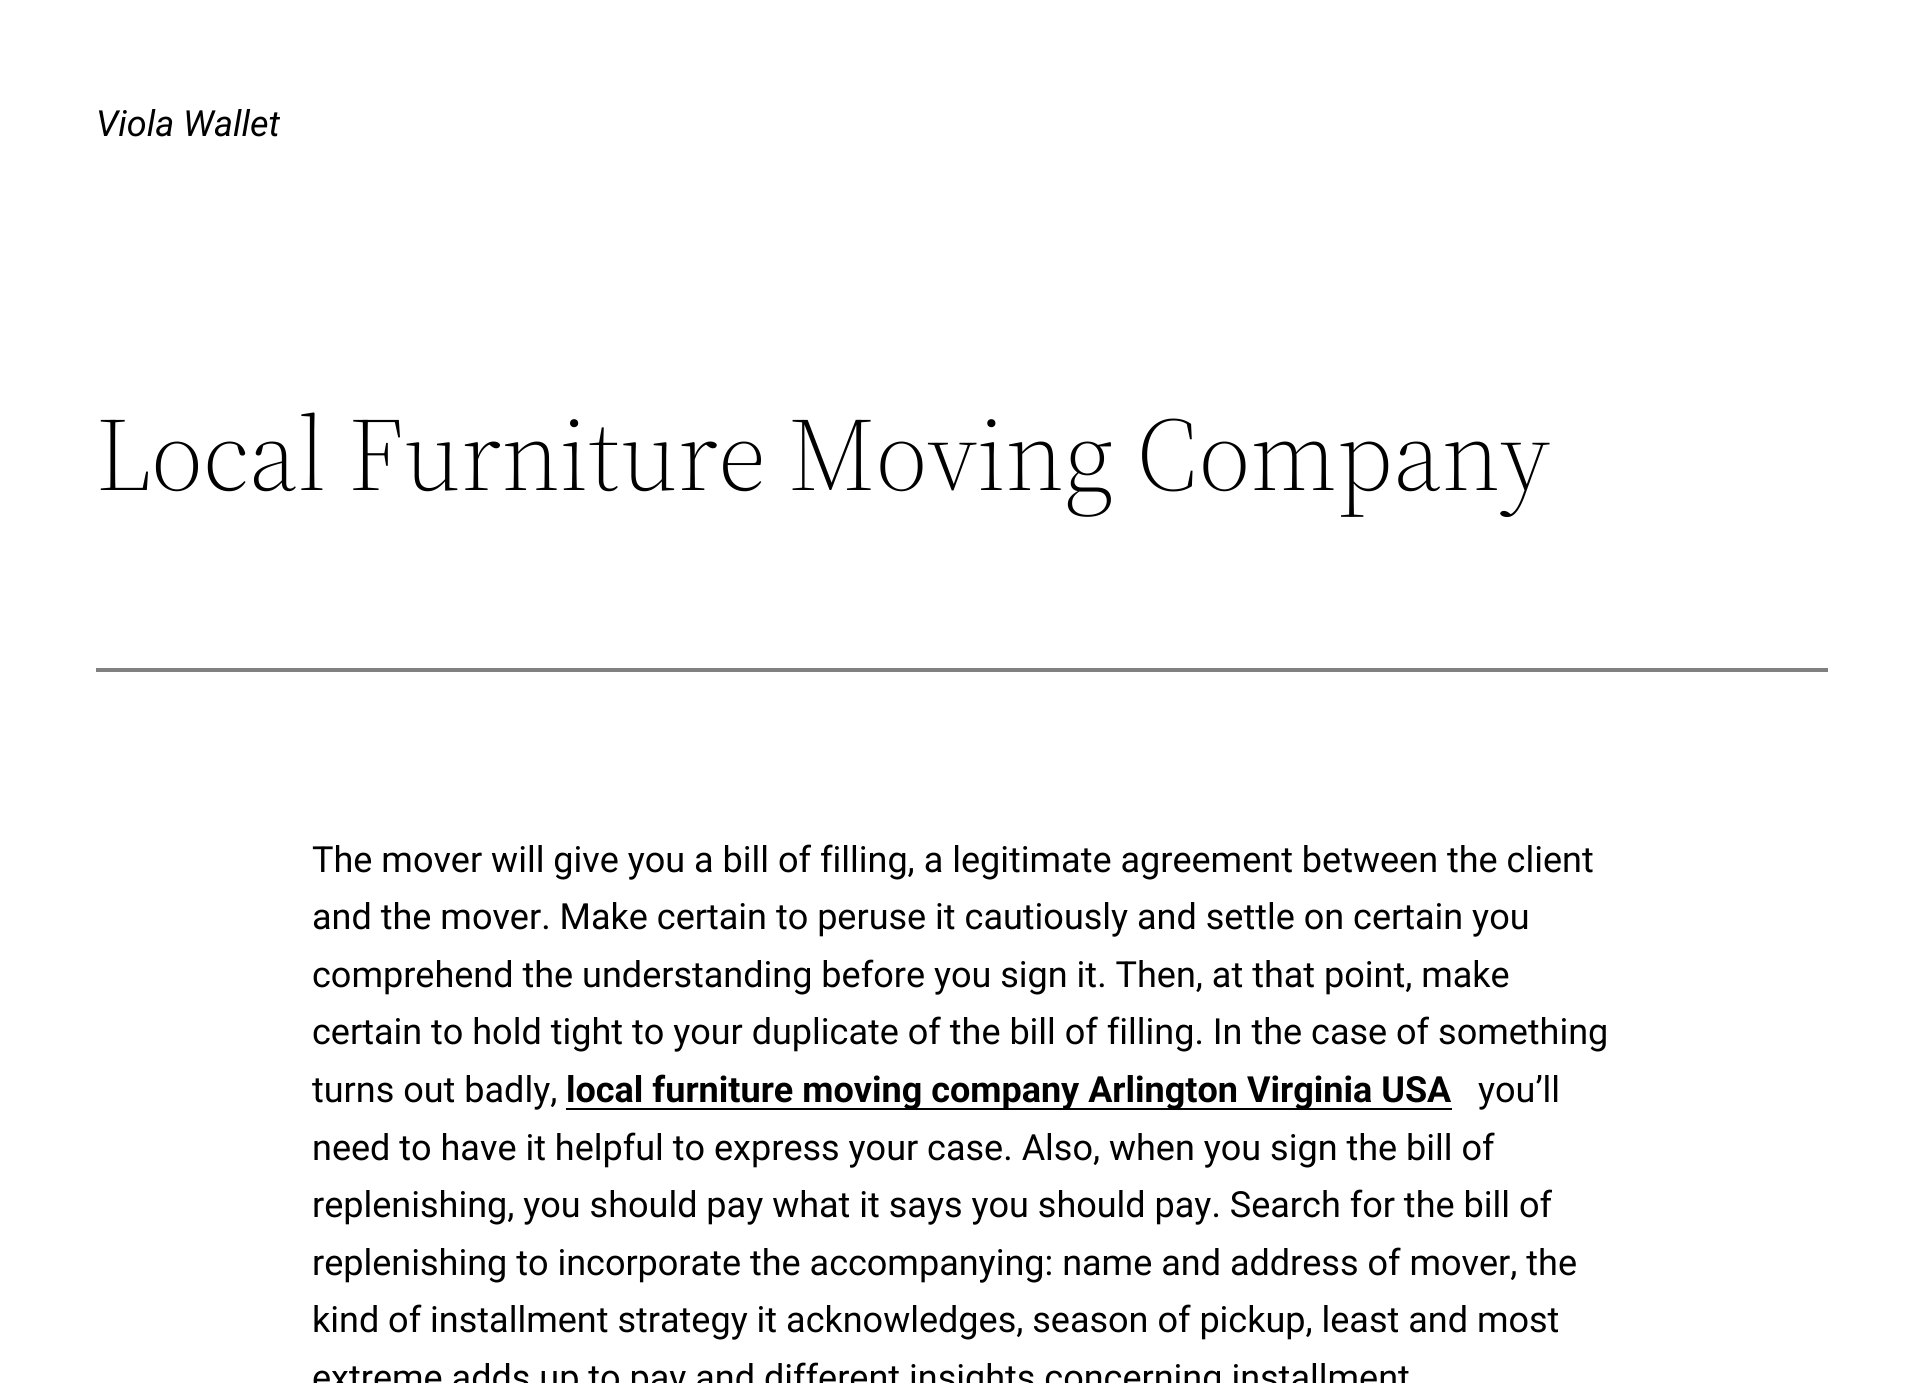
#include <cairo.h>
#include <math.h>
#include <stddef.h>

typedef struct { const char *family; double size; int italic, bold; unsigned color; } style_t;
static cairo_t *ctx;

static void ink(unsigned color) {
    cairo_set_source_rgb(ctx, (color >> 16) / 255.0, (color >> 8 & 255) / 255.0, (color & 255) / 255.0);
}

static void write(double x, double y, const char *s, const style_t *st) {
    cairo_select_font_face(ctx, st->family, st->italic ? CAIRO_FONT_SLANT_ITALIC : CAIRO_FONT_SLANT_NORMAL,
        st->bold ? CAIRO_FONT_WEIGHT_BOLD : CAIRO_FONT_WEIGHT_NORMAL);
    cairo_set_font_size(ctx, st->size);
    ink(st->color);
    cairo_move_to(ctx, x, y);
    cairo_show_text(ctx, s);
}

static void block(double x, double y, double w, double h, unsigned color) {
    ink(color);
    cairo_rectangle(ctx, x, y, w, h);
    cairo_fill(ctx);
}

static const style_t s1 = {"Roboto", 36, 1, 0, 0x000000};
static const style_t s2 = {"Source Serif 4 Light", 104, 0, 0, 0x000000};
static const style_t s3 = {"Roboto", 36, 0, 0, 0x000000};
static const style_t s4 = {"Roboto", 36, 0, 1, 0x000000};

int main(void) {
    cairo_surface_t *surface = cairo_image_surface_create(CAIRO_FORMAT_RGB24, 1924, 1383);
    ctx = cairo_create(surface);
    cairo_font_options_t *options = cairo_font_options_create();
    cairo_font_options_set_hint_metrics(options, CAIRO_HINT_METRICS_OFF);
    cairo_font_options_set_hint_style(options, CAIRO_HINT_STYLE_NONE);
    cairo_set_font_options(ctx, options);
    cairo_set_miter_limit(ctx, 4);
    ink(0xffffff);
    cairo_paint(ctx);
    write(96, 136, "Viola Wallet", &s1);
    write(96, 490, "Local Furniture Moving Company", &s2);
    block(96, 668, 1732, 4, 0x808080);
    write(312, 872, "The mover will give you a bill of filling, a legitimate agreement between the client", &s3);
    write(312, 929, "and the mover. Make certain to peruse it cautiously and settle on certain you", &s3);
    write(312, 987, "comprehend the understanding before you sign it. Then, at that point, make", &s3);
    write(312, 1044, "certain to hold tight to your duplicate of the bill of filling. In the case of something", &s3);
    write(312, 1102, "turns out badly,", &s3);
    block(566, 1108, 886, 2, 0x000000);
    write(566, 1102, "local furniture moving company Arlington Virginia USA", &s4);
    write(1478, 1102, "you’ll", &s3);
    write(312, 1160, "need to have it helpful to express your case. Also, when you sign the bill of", &s3);
    write(312, 1217, "replenishing, you should pay what it says you should pay. Search for the bill of", &s3);
    write(312, 1275, "replenishing to incorporate the accompanying: name and address of mover, the", &s3);
    write(312, 1332, "kind of installment strategy it acknowledges, season of pickup, least and most", &s3);
    write(312, 1390, "extreme adds up to pay and different insights concerning installment", &s3);
    cairo_surface_write_to_png(surface, "screenshot.png");
    cairo_font_options_destroy(options);
    cairo_destroy(ctx);
    cairo_surface_destroy(surface);
    return 0;
}
